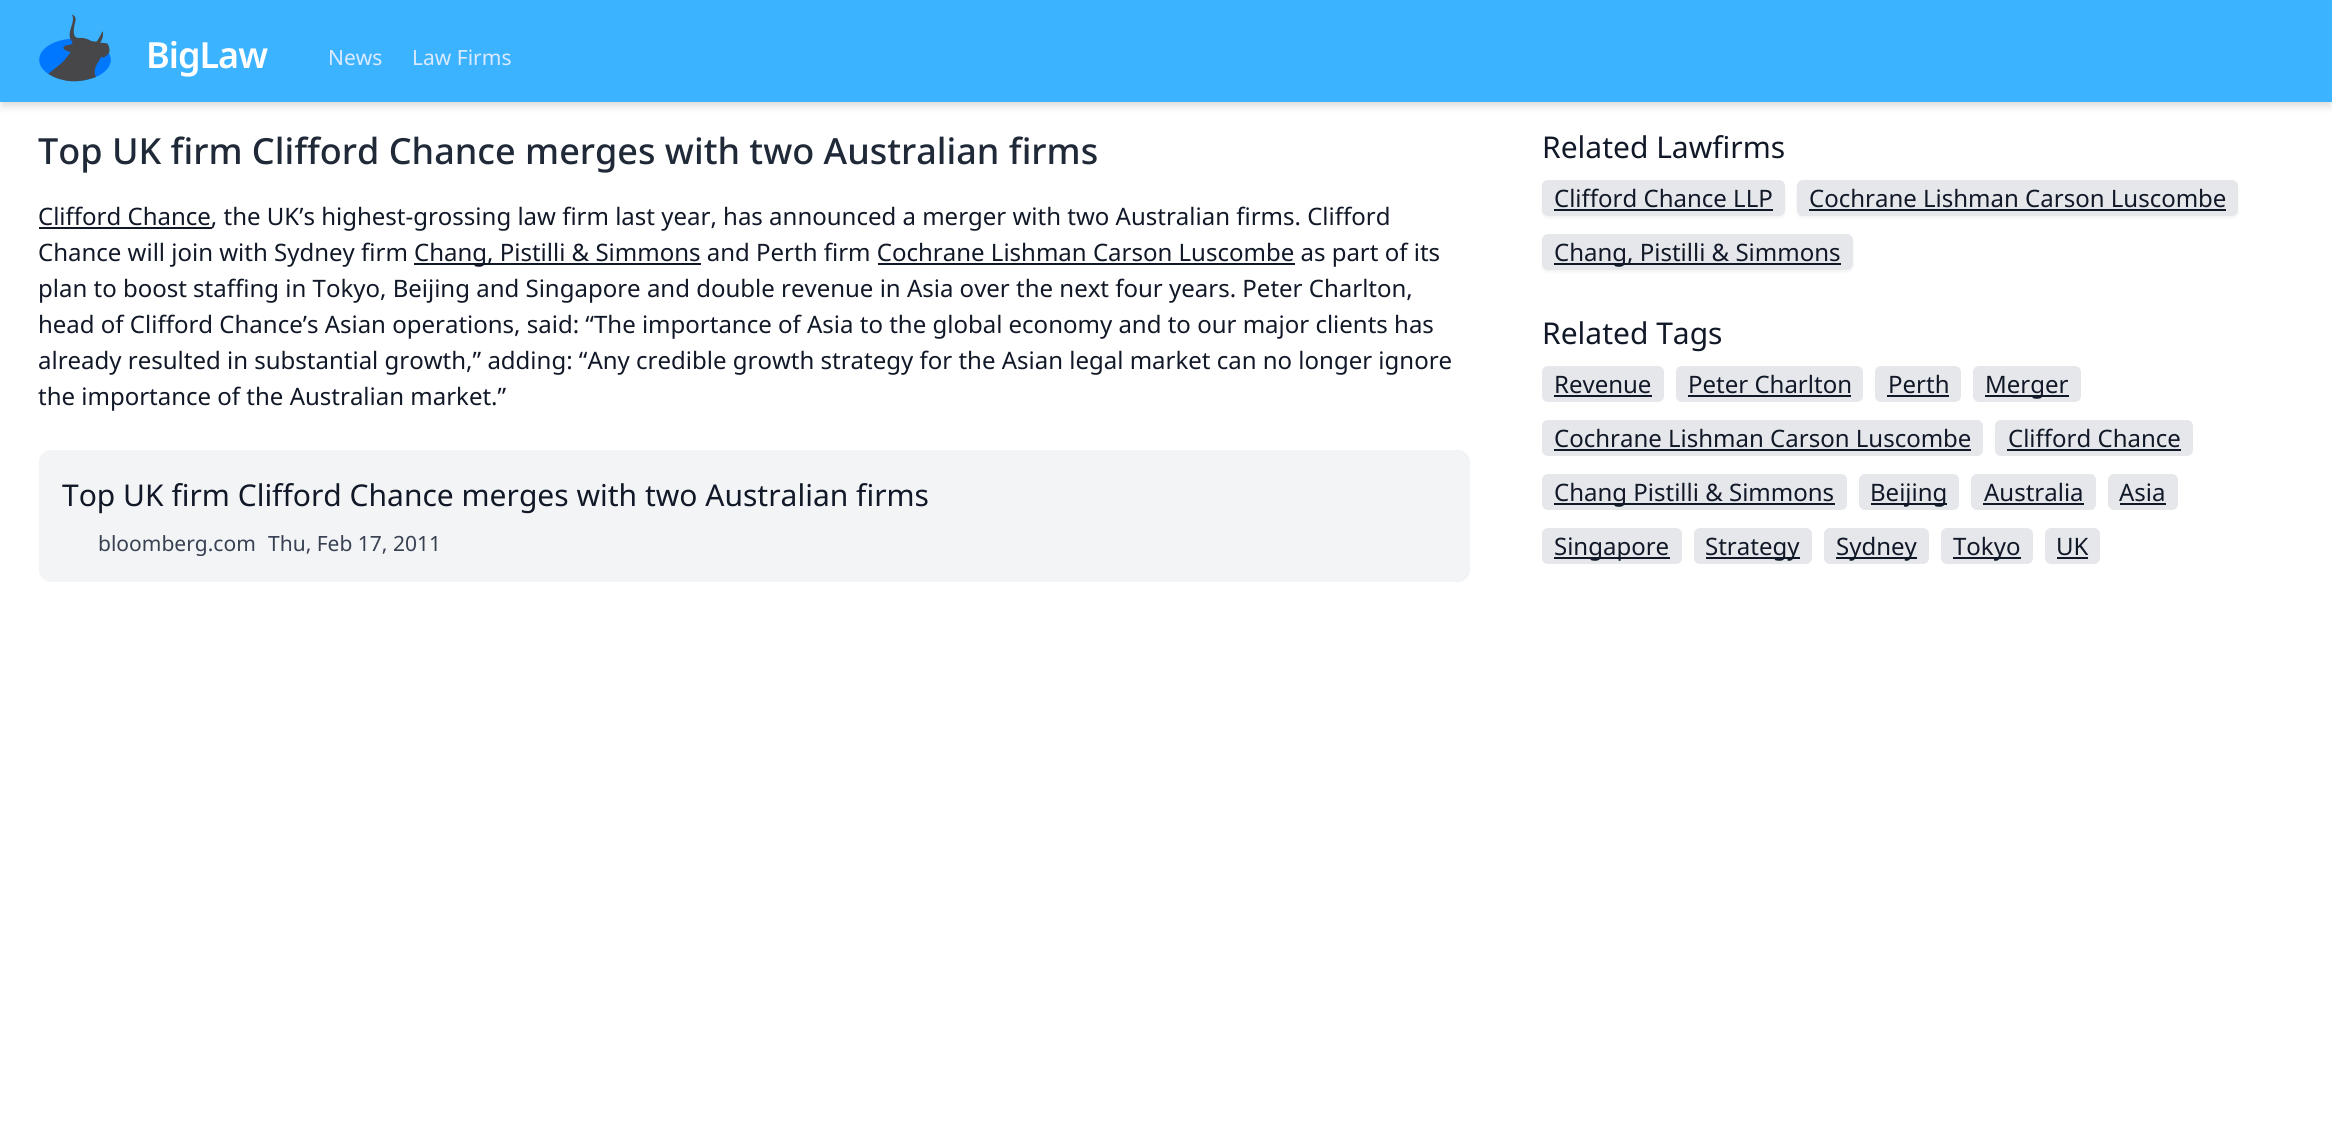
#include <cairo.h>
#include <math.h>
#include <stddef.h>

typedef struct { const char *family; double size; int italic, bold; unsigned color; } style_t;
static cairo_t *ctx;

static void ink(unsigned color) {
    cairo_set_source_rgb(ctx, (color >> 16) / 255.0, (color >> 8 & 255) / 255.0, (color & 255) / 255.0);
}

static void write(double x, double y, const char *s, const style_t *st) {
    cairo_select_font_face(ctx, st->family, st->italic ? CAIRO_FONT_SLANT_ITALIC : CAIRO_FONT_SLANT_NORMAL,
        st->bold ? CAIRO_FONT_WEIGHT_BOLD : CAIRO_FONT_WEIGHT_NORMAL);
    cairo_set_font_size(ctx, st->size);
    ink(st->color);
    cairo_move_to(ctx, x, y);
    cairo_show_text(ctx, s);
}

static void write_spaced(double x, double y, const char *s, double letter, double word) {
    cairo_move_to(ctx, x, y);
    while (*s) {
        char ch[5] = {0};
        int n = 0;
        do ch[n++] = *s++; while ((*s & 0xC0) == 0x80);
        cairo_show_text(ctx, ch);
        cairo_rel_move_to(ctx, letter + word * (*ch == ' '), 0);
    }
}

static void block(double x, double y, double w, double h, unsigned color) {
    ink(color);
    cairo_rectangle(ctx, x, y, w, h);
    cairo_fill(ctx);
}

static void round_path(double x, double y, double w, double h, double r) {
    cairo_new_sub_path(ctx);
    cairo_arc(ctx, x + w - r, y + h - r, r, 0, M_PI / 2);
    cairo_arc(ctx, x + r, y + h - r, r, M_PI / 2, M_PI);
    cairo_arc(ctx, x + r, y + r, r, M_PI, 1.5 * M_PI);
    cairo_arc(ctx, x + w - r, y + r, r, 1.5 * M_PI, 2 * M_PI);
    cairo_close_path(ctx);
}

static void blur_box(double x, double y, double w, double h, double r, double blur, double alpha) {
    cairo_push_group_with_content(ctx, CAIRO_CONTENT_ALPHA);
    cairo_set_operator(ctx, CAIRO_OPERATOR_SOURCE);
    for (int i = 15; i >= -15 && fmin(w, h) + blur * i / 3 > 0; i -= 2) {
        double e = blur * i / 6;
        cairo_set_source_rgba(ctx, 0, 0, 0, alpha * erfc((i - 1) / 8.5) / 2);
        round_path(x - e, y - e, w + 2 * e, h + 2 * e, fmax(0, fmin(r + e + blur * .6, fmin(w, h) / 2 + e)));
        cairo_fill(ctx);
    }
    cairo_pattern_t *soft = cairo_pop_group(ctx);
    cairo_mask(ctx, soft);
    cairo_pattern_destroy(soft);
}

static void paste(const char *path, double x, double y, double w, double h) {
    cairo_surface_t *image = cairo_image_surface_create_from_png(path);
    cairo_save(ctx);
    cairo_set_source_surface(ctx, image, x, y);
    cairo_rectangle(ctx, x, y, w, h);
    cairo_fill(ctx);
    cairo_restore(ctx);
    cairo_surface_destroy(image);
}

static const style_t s1 = {"Noto Sans", 21, 0, 0, 0xdbeafe};
static const style_t s2 = {"Noto Sans Medium", 36, 0, 0, 0x1f2937};
static const style_t s3 = {"Noto Sans", 24, 0, 0, 0x111827};
static const style_t s4 = {"Noto Sans", 30, 0, 0, 0x111827};
static const style_t s5 = {"Noto Sans", 21, 0, 0, 0x374151};

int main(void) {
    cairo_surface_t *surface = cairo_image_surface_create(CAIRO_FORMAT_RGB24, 2332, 1145);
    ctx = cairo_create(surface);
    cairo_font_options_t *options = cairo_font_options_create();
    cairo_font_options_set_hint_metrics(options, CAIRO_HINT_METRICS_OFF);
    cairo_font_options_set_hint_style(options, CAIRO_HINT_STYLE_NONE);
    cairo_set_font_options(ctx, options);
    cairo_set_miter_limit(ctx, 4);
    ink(0xffffff);
    cairo_paint(ctx);
    ink(0x000000);
    blur_box(2, 5, 2329, 99, 0, 3, 0.06);
    blur_box(2, 8, 2329, 99, 0, 4.5, 0.1);
    block(0, 0, 2332, 102, 0x3cb3ff);
    paste("pic1.png", 39, 14, 72, 68);
    cairo_select_font_face(ctx, "Noto Sans SemiBold", CAIRO_FONT_SLANT_NORMAL, CAIRO_FONT_WEIGHT_NORMAL);
    cairo_set_font_size(ctx, 36);
    ink(0xffffff);
    write_spaced(146, 68, "BigLaw", -1, 0);
    write(328, 65, "News", &s1);
    write(412, 65, "Law Firms", &s1);
    write(38, 164, "Top UK firm Clifford Chance merges with two Australian firms", &s2);
    block(39, 227, 173, 2, 0x111827);
    write(38, 225, "Clifford Chance, the UK’s highest-grossing law firm last year, has announced a merger with two Australian firms. Clifford", &s3);
    write(38, 261, "Chance will join with Sydney firm", &s3);
    block(414, 263, 287, 2, 0x111827);
    write(414, 261, "Chang, Pistilli & Simmons and Perth firm Cochrane Lishman Carson Luscombe as part of its", &s3);
    block(878, 263, 417, 2, 0x111827);
    write(38, 297, "plan to boost staffing in Tokyo, Beijing and Singapore and double revenue in Asia over the next four years. Peter Charlton,", &s3);
    write(38, 333, "head of Clifford Chance’s Asian operations, said: “The importance of Asia to the global economy and to our major clients has", &s3);
    write(38, 369, "already resulted in substantial growth,” adding: “Any credible growth strategy for the Asian legal market can no longer ignore", &s3);
    write(38, 405, "the importance of the Australian market.”", &s3);
    ink(0xf3f4f6);
    round_path(39, 450, 1431, 132, 12);
    cairo_fill(ctx);
    write(62, 506, "Top UK firm Clifford Chance merges with two Australian firms", &s4);
    write(98, 551, "bloomberg.com", &s5);
    write(268, 551, "Thu, Feb 17, 2011", &s5);
    write(1542, 158, "Related Lawfirms", &s4);
    ink(0x000000);
    blur_box(1542, 182, 243, 36, 6, 1.5, 0.05);
    ink(0xe5e7eb);
    round_path(1542, 180, 243, 36, 6);
    cairo_fill(ctx);
    write(1554, 207, "Clifford Chance LLP", &s3);
    block(1554, 209, 219, 2, 0x111827);
    ink(0x000000);
    blur_box(1797, 182, 441, 36, 6, 1.5, 0.05);
    ink(0xe5e7eb);
    round_path(1797, 180, 441, 36, 6);
    cairo_fill(ctx);
    write(1809, 207, "Cochrane Lishman Carson Luscombe", &s3);
    block(1809, 209, 417, 2, 0x111827);
    ink(0x000000);
    blur_box(1542, 236, 311, 36, 6, 1.5, 0.05);
    ink(0xe5e7eb);
    round_path(1542, 234, 311, 36, 6);
    cairo_fill(ctx);
    block(1554, 263, 287, 2, 0x111827);
    write(1554, 261, "Chang, Pistilli & Simmons", &s3);
    write(1542, 344, "Related Tags", &s4);
    ink(0xe5e7eb);
    round_path(1542, 366, 122, 36, 6);
    cairo_fill(ctx);
    write(1554, 393, "Revenue", &s3);
    block(1554, 395, 98, 2, 0x111827);
    ink(0xe5e7eb);
    round_path(1676, 366, 187, 36, 6);
    cairo_fill(ctx);
    write(1688, 393, "Peter Charlton", &s3);
    block(1688, 395, 163, 2, 0x111827);
    ink(0xe5e7eb);
    round_path(1875, 366, 86, 36, 6);
    cairo_fill(ctx);
    write(1888, 393, "Perth", &s3);
    block(1887, 395, 62, 2, 0x111827);
    ink(0xe5e7eb);
    round_path(1973, 366, 108, 36, 6);
    cairo_fill(ctx);
    block(1985, 395, 84, 2, 0x111827);
    write(1985, 393, "Merger", &s3);
    ink(0xe5e7eb);
    round_path(1542, 420, 441, 36, 6);
    cairo_fill(ctx);
    write(1554, 447, "Cochrane Lishman Carson Luscombe", &s3);
    block(1554, 449, 417, 2, 0x111827);
    ink(0xe5e7eb);
    round_path(1995, 420, 198, 36, 6);
    cairo_fill(ctx);
    write(2008, 447, "Clifford Chance", &s3);
    block(2007, 449, 174, 2, 0x111827);
    ink(0xe5e7eb);
    round_path(1542, 474, 305, 36, 6);
    cairo_fill(ctx);
    block(1554, 503, 281, 2, 0x111827);
    write(1554, 501, "Chang Pistilli & Simmons", &s3);
    ink(0xe5e7eb);
    round_path(1859, 474, 100, 36, 6);
    cairo_fill(ctx);
    block(1871, 503, 76, 2, 0x111827);
    write(1870, 501, "Beijing", &s3);
    ink(0xe5e7eb);
    round_path(1971, 474, 125, 36, 6);
    cairo_fill(ctx);
    write(1984, 501, "Australia", &s3);
    block(1983, 503, 101, 2, 0x111827);
    ink(0xe5e7eb);
    round_path(2108, 474, 70, 36, 6);
    cairo_fill(ctx);
    write(2119, 501, "Asia", &s3);
    block(2120, 503, 46, 2, 0x111827);
    ink(0xe5e7eb);
    round_path(1542, 528, 140, 36, 6);
    cairo_fill(ctx);
    block(1554, 557, 116, 2, 0x111827);
    write(1554, 555, "Singapore", &s3);
    ink(0xe5e7eb);
    round_path(1694, 528, 118, 36, 6);
    cairo_fill(ctx);
    block(1706, 557, 94, 2, 0x111827);
    write(1705, 555, "Strategy", &s3);
    ink(0xe5e7eb);
    round_path(1824, 528, 105, 36, 6);
    cairo_fill(ctx);
    block(1836, 557, 81, 2, 0x111827);
    write(1836, 555, "Sydney", &s3);
    ink(0xe5e7eb);
    round_path(1941, 528, 92, 36, 6);
    cairo_fill(ctx);
    block(1953, 557, 68, 2, 0x111827);
    write(1953, 555, "Tokyo", &s3);
    ink(0xe5e7eb);
    round_path(2045, 528, 55, 36, 6);
    cairo_fill(ctx);
    write(2056, 555, "UK", &s3);
    block(2057, 557, 31, 2, 0x111827);
    cairo_surface_write_to_png(surface, "screenshot.png");
    cairo_font_options_destroy(options);
    cairo_destroy(ctx);
    cairo_surface_destroy(surface);
    return 0;
}
